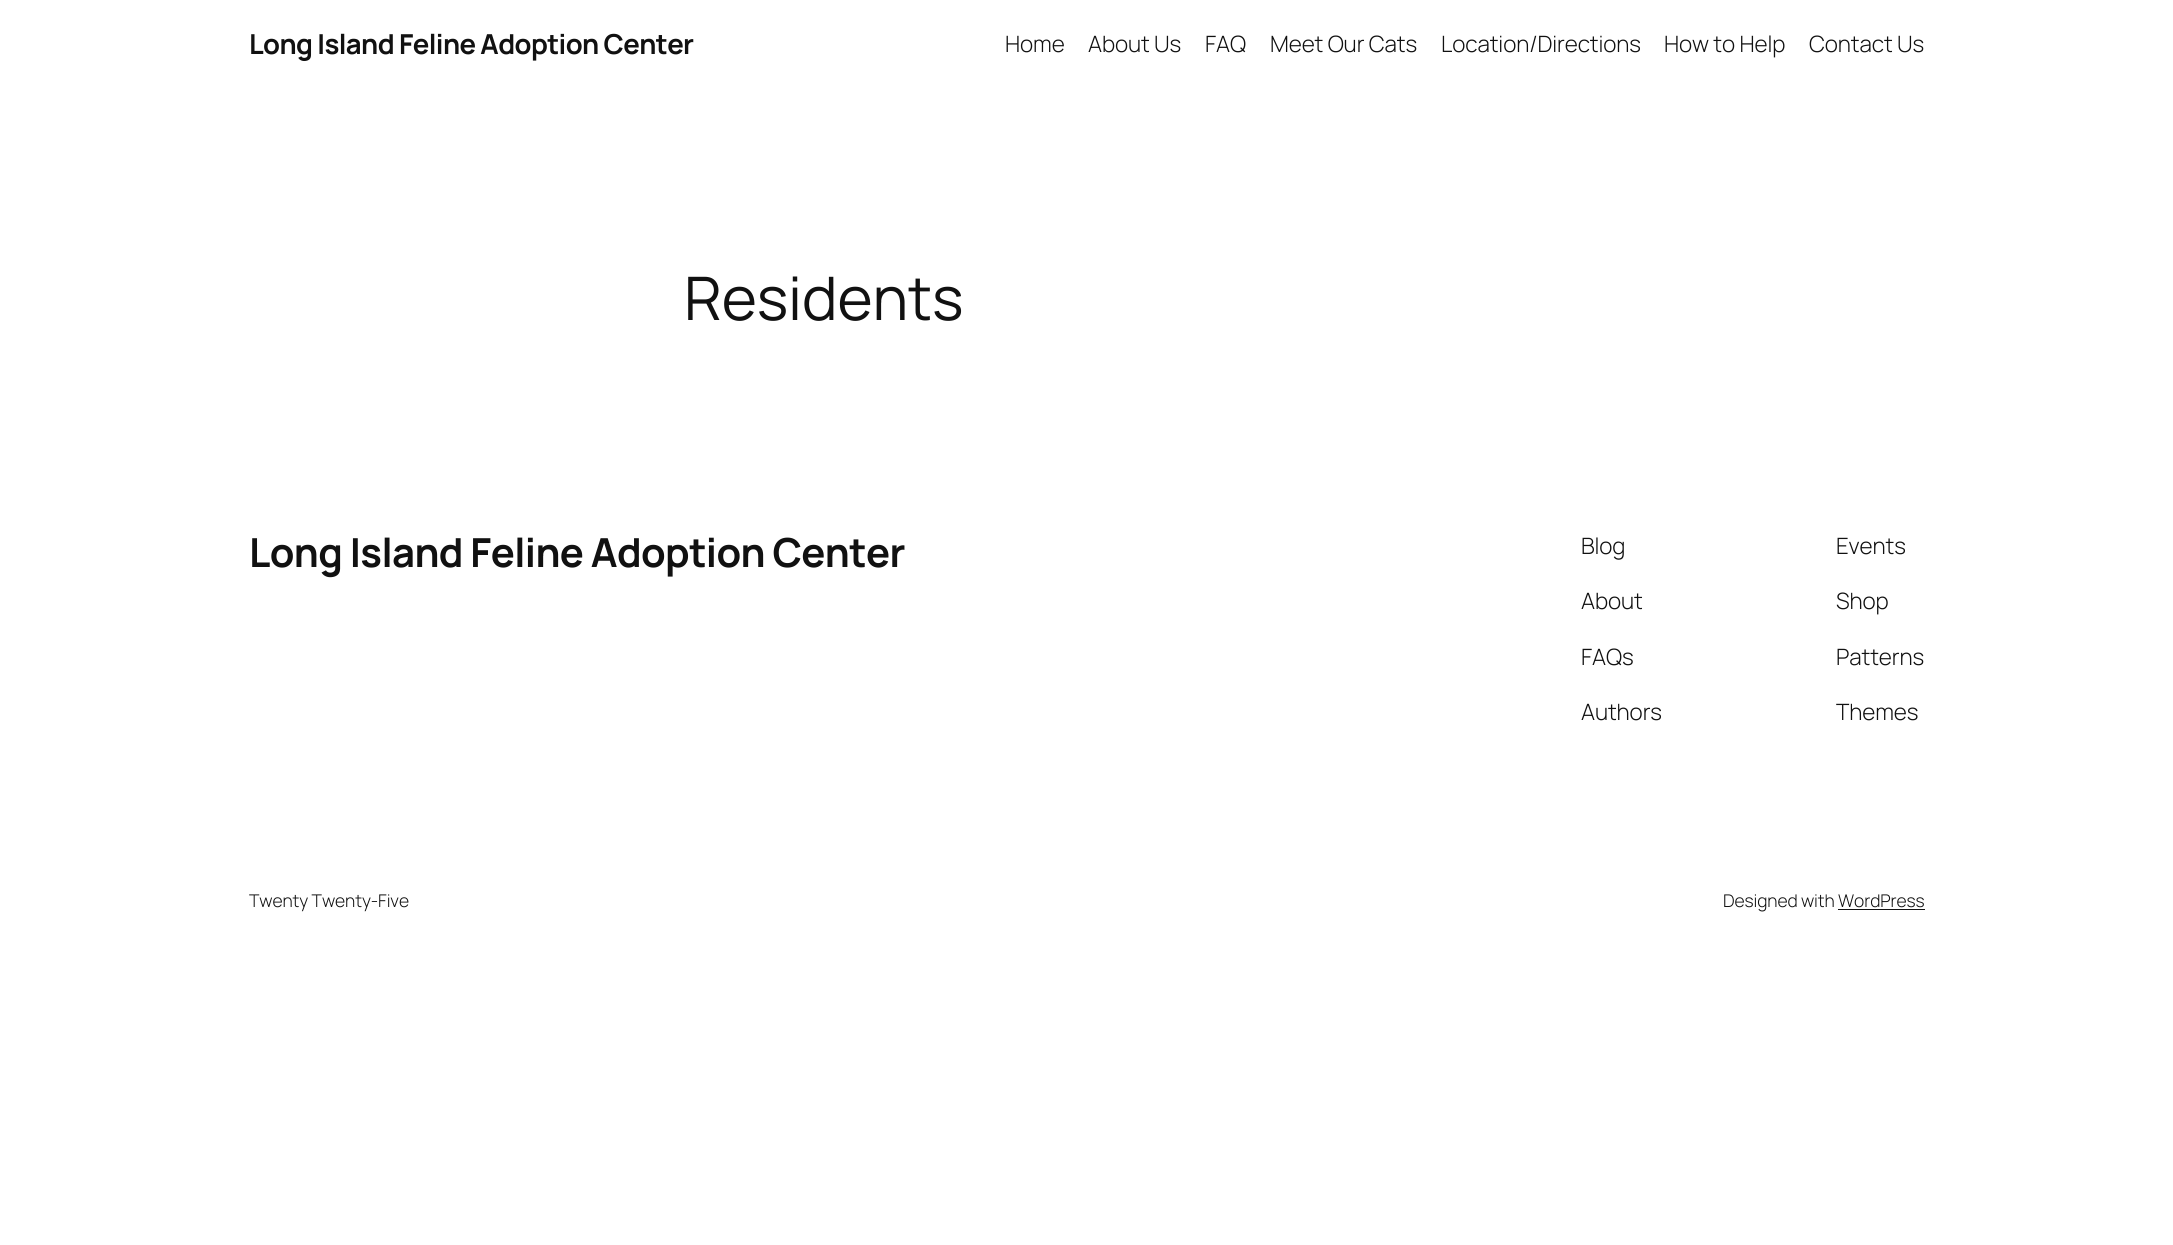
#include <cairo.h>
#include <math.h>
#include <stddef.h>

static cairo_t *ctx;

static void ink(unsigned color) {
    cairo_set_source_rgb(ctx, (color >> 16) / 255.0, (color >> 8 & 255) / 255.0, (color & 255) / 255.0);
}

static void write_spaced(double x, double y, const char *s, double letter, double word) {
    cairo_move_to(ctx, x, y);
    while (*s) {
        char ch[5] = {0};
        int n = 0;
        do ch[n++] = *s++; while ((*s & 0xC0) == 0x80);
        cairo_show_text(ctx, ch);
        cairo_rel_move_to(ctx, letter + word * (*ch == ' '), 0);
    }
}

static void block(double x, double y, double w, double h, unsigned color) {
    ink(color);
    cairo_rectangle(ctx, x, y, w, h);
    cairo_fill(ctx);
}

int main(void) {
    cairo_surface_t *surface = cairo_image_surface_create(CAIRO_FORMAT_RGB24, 2173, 1245);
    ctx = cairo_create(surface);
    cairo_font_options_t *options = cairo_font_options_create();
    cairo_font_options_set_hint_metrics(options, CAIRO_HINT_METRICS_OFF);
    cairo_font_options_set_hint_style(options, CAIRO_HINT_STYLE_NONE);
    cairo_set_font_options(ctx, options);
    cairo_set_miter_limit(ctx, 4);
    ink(0xffffff);
    cairo_paint(ctx);
    cairo_select_font_face(ctx, "Manrope", CAIRO_FONT_SLANT_NORMAL, CAIRO_FONT_WEIGHT_BOLD);
    cairo_set_font_size(ctx, 27.5);
    ink(0x111111);
    write_spaced(249, 54, "Long Island Feline Adoption Center", -0.6, 0);
    cairo_select_font_face(ctx, "Manrope Light", CAIRO_FONT_SLANT_NORMAL, CAIRO_FONT_WEIGHT_NORMAL);
    cairo_set_font_size(ctx, 22.5);
    write_spaced(1005, 52, "Home", -0.1, 0);
    write_spaced(1088, 52, "About Us", -0.1, 0);
    write_spaced(1205, 52, "FAQ", -0.1, 0);
    write_spaced(1270, 52, "Meet Our Cats", -0.1, 0);
    write_spaced(1441, 52, "Location/Directions", -0.1, 0);
    write_spaced(1664, 52, "How to Help", -0.1, 0);
    write_spaced(1809, 52, "Contact Us", -0.1, 0);
    cairo_select_font_face(ctx, "Manrope", CAIRO_FONT_SLANT_NORMAL, CAIRO_FONT_WEIGHT_NORMAL);
    cairo_set_font_size(ctx, 60);
    write_spaced(684, 320, "Residents", -0.1, 0);
    cairo_select_font_face(ctx, "Manrope", CAIRO_FONT_SLANT_NORMAL, CAIRO_FONT_WEIGHT_BOLD);
    cairo_set_font_size(ctx, 40);
    write_spaced(249, 567, "Long Island Feline Adoption Center", -0.6, 0);
    cairo_select_font_face(ctx, "Manrope Light", CAIRO_FONT_SLANT_NORMAL, CAIRO_FONT_WEIGHT_NORMAL);
    cairo_set_font_size(ctx, 22.5);
    write_spaced(1581, 554, "Blog", -0.1, 0);
    write_spaced(1581, 609, "About", -0.1, 0);
    write_spaced(1581, 665, "FAQs", -0.1, 0);
    write_spaced(1581, 720, "Authors", -0.1, 0);
    write_spaced(1836, 554, "Events", -0.1, 0);
    write_spaced(1836, 609, "Shop", -0.1, 0);
    write_spaced(1836, 665, "Patterns", -0.1, 0);
    write_spaced(1836, 720, "Themes", -0.1, 0);
    cairo_set_font_size(ctx, 17.5);
    write_spaced(249, 907, "Twenty Twenty-Five", -0.1, 0);
    write_spaced(1723, 907, "Designed with WordPress", -0.1, 0);
    block(1838, 909, 87, 1, 0x111111);
    cairo_surface_write_to_png(surface, "screenshot.png");
    cairo_font_options_destroy(options);
    cairo_destroy(ctx);
    cairo_surface_destroy(surface);
    return 0;
}
